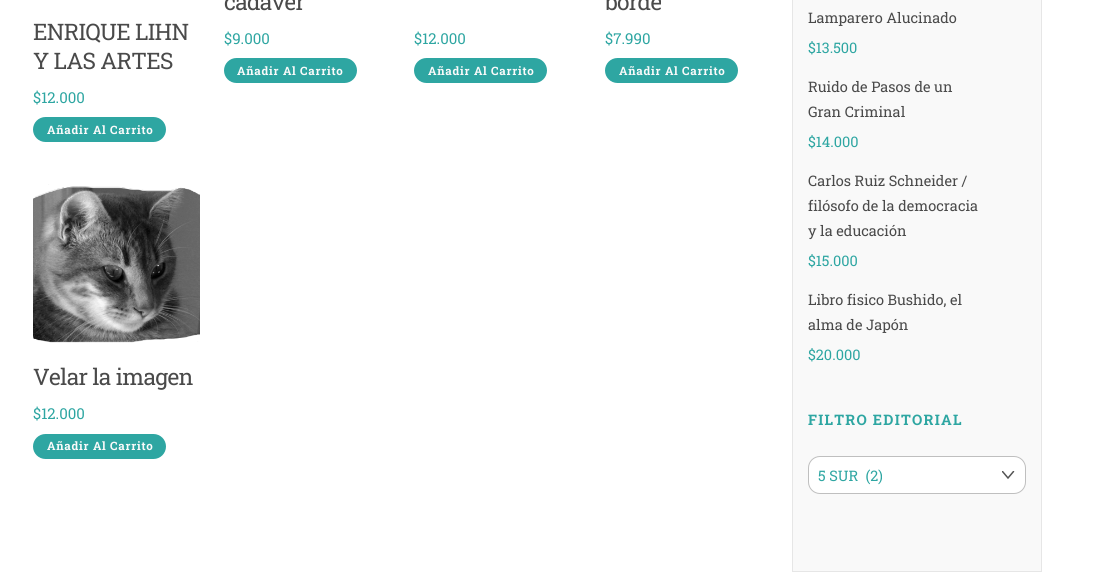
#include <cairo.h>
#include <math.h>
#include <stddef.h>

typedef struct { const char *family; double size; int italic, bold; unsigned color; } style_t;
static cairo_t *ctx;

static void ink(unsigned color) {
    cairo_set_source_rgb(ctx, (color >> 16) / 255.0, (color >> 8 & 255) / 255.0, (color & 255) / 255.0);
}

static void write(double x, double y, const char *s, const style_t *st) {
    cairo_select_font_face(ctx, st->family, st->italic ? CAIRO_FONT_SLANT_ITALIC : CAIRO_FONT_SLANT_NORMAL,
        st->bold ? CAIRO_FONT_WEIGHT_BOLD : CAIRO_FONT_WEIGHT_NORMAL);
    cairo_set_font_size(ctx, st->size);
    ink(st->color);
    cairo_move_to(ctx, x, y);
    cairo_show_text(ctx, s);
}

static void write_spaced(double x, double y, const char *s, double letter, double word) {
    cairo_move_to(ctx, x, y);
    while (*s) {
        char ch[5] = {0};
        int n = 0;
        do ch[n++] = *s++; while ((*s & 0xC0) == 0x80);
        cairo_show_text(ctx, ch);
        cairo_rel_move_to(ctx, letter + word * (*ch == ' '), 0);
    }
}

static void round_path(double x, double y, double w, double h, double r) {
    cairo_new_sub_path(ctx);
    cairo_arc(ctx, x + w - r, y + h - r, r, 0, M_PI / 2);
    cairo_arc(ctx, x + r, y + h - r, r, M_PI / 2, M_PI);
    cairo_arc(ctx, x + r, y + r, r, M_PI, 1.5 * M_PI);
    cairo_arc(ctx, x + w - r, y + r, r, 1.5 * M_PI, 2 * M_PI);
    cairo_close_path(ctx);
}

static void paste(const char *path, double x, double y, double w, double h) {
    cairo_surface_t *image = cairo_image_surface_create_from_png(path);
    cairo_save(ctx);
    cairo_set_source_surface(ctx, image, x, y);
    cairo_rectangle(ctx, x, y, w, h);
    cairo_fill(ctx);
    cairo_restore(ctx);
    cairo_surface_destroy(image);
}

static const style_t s1 = {"Roboto Slab", 15, 0, 0, 0x2ea6a2};
static const style_t s2 = {"Roboto Slab", 14.5, 0, 0, 0x4a4a4a};
static const style_t s3 = {"Roboto Slab", 14.5, 0, 0, 0x2ea6a2};

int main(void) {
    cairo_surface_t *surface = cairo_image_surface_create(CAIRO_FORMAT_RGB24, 1107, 572);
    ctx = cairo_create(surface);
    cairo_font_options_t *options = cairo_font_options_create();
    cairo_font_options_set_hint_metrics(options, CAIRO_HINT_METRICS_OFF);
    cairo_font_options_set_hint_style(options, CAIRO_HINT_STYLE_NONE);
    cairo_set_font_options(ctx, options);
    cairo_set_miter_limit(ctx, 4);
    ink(0xffffff);
    cairo_paint(ctx);
    cairo_select_font_face(ctx, "Roboto Slab", CAIRO_FONT_SLANT_NORMAL, CAIRO_FONT_WEIGHT_NORMAL);
    cairo_set_font_size(ctx, 22.75);
    ink(0x4a4a4a);
    write_spaced(33, 40, "ENRIQUE LIHN", -0.7, 0);
    write_spaced(33, 69, "Y LAS ARTES", -0.7, 0);
    write(33, 103, "$12.000", &s1);
    round_path(33, 117, 133, 25, 12.5);
    cairo_fill(ctx);
    cairo_select_font_face(ctx, "Roboto Slab", CAIRO_FONT_SLANT_NORMAL, CAIRO_FONT_WEIGHT_BOLD);
    cairo_set_font_size(ctx, 11.5);
    ink(0xfafafa);
    write_spaced(47, 134, "Añadir Al Carrito", 0.75, 0);
    cairo_select_font_face(ctx, "Roboto Slab", CAIRO_FONT_SLANT_NORMAL, CAIRO_FONT_WEIGHT_NORMAL);
    cairo_set_font_size(ctx, 22.75);
    ink(0x4a4a4a);
    write_spaced(224, 10, "cadáver", -0.7, 0);
    write(224, 44, "$9.000", &s1);
    round_path(224, 58, 133, 25, 12.5);
    cairo_fill(ctx);
    cairo_select_font_face(ctx, "Roboto Slab", CAIRO_FONT_SLANT_NORMAL, CAIRO_FONT_WEIGHT_BOLD);
    cairo_set_font_size(ctx, 11.5);
    ink(0xfafafa);
    write_spaced(237, 75, "Añadir Al Carrito", 0.75, 0);
    write(414, 44, "$12.000", &s1);
    round_path(414, 58, 133, 25, 12.5);
    cairo_fill(ctx);
    cairo_select_font_face(ctx, "Roboto Slab", CAIRO_FONT_SLANT_NORMAL, CAIRO_FONT_WEIGHT_BOLD);
    cairo_set_font_size(ctx, 11.5);
    ink(0xfafafa);
    write_spaced(428, 75, "Añadir Al Carrito", 0.75, 0);
    cairo_select_font_face(ctx, "Roboto Slab", CAIRO_FONT_SLANT_NORMAL, CAIRO_FONT_WEIGHT_NORMAL);
    cairo_set_font_size(ctx, 22.75);
    ink(0x4a4a4a);
    write_spaced(605, 10, "borde", -0.7, 0);
    write(605, 44, "$7.990", &s1);
    round_path(605, 58, 133, 25, 12.5);
    cairo_fill(ctx);
    cairo_select_font_face(ctx, "Roboto Slab", CAIRO_FONT_SLANT_NORMAL, CAIRO_FONT_WEIGHT_BOLD);
    cairo_set_font_size(ctx, 11.5);
    ink(0xfafafa);
    write_spaced(619, 75, "Añadir Al Carrito", 0.75, 0);
    paste("pic1.png", 33, 184, 167, 159);
    cairo_select_font_face(ctx, "Roboto Slab", CAIRO_FONT_SLANT_NORMAL, CAIRO_FONT_WEIGHT_NORMAL);
    cairo_set_font_size(ctx, 22.75);
    ink(0x4a4a4a);
    write_spaced(33, 385, "Velar la imagen", -0.7, 0);
    write(33, 419, "$12.000", &s1);
    round_path(33, 434, 133, 25, 12.5);
    cairo_fill(ctx);
    cairo_select_font_face(ctx, "Roboto Slab", CAIRO_FONT_SLANT_NORMAL, CAIRO_FONT_WEIGHT_BOLD);
    cairo_set_font_size(ctx, 11.5);
    ink(0xfafafa);
    write_spaced(47, 450, "Añadir Al Carrito", 0.75, 0);
    ink(0xf9f9f9);
    cairo_rectangle(ctx, 792.5, -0.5, 249, 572);
    cairo_fill_preserve(ctx);
    ink(0xe6e6e6);
    cairo_set_line_width(ctx, 1);
    cairo_stroke(ctx);
    write(808, 23, "Lamparero Alucinado", &s2);
    write(808, 53, "$13.500", &s3);
    write(808, 92, "Ruido de Pasos de un", &s2);
    write(808, 117, "Gran Criminal", &s2);
    write(808, 147, "$14.000", &s3);
    write(808, 186, "Carlos Ruiz Schneider /", &s2);
    write(808, 211, "filósofo de la democracia", &s2);
    write(808, 236, "y la educación", &s2);
    write(808, 266, "$15.000", &s3);
    write(808, 305, "Libro fisico Bushido, el", &s2);
    write(808, 330, "alma de Japón", &s2);
    write(808, 360, "$20.000", &s3);
    cairo_select_font_face(ctx, "Roboto Slab", CAIRO_FONT_SLANT_NORMAL, CAIRO_FONT_WEIGHT_BOLD);
    write_spaced(808, 425, "FILTRO EDITORIAL", 1.25, 0);
    ink(0xffffff);
    round_path(808, 456, 218, 38, 12);
    cairo_fill(ctx);
    cairo_save(ctx);
    cairo_rectangle(ctx, 1002, 471, 13, 13);
    cairo_clip(ctx);
    cairo_new_path(ctx);
    cairo_move_to(ctx, 1002.5, 471.5);
    cairo_line_to(ctx, 1008, 478);
    cairo_line_to(ctx, 1013.5, 471.5);
    ink(0x535353);
    cairo_set_line_width(ctx, 1.5);
    cairo_set_line_cap(ctx, CAIRO_LINE_CAP_ROUND);
    cairo_stroke(ctx);
    cairo_restore(ctx);
    round_path(808.5, 456.5, 217, 37, 11.5);
    cairo_set_source_rgba(ctx, 0, 0, 0, 0.25);
    cairo_stroke(ctx);
    write(818, 481, "5 SUR  (2)", &s3);
    cairo_surface_write_to_png(surface, "screenshot.png");
    cairo_font_options_destroy(options);
    cairo_destroy(ctx);
    cairo_surface_destroy(surface);
    return 0;
}
